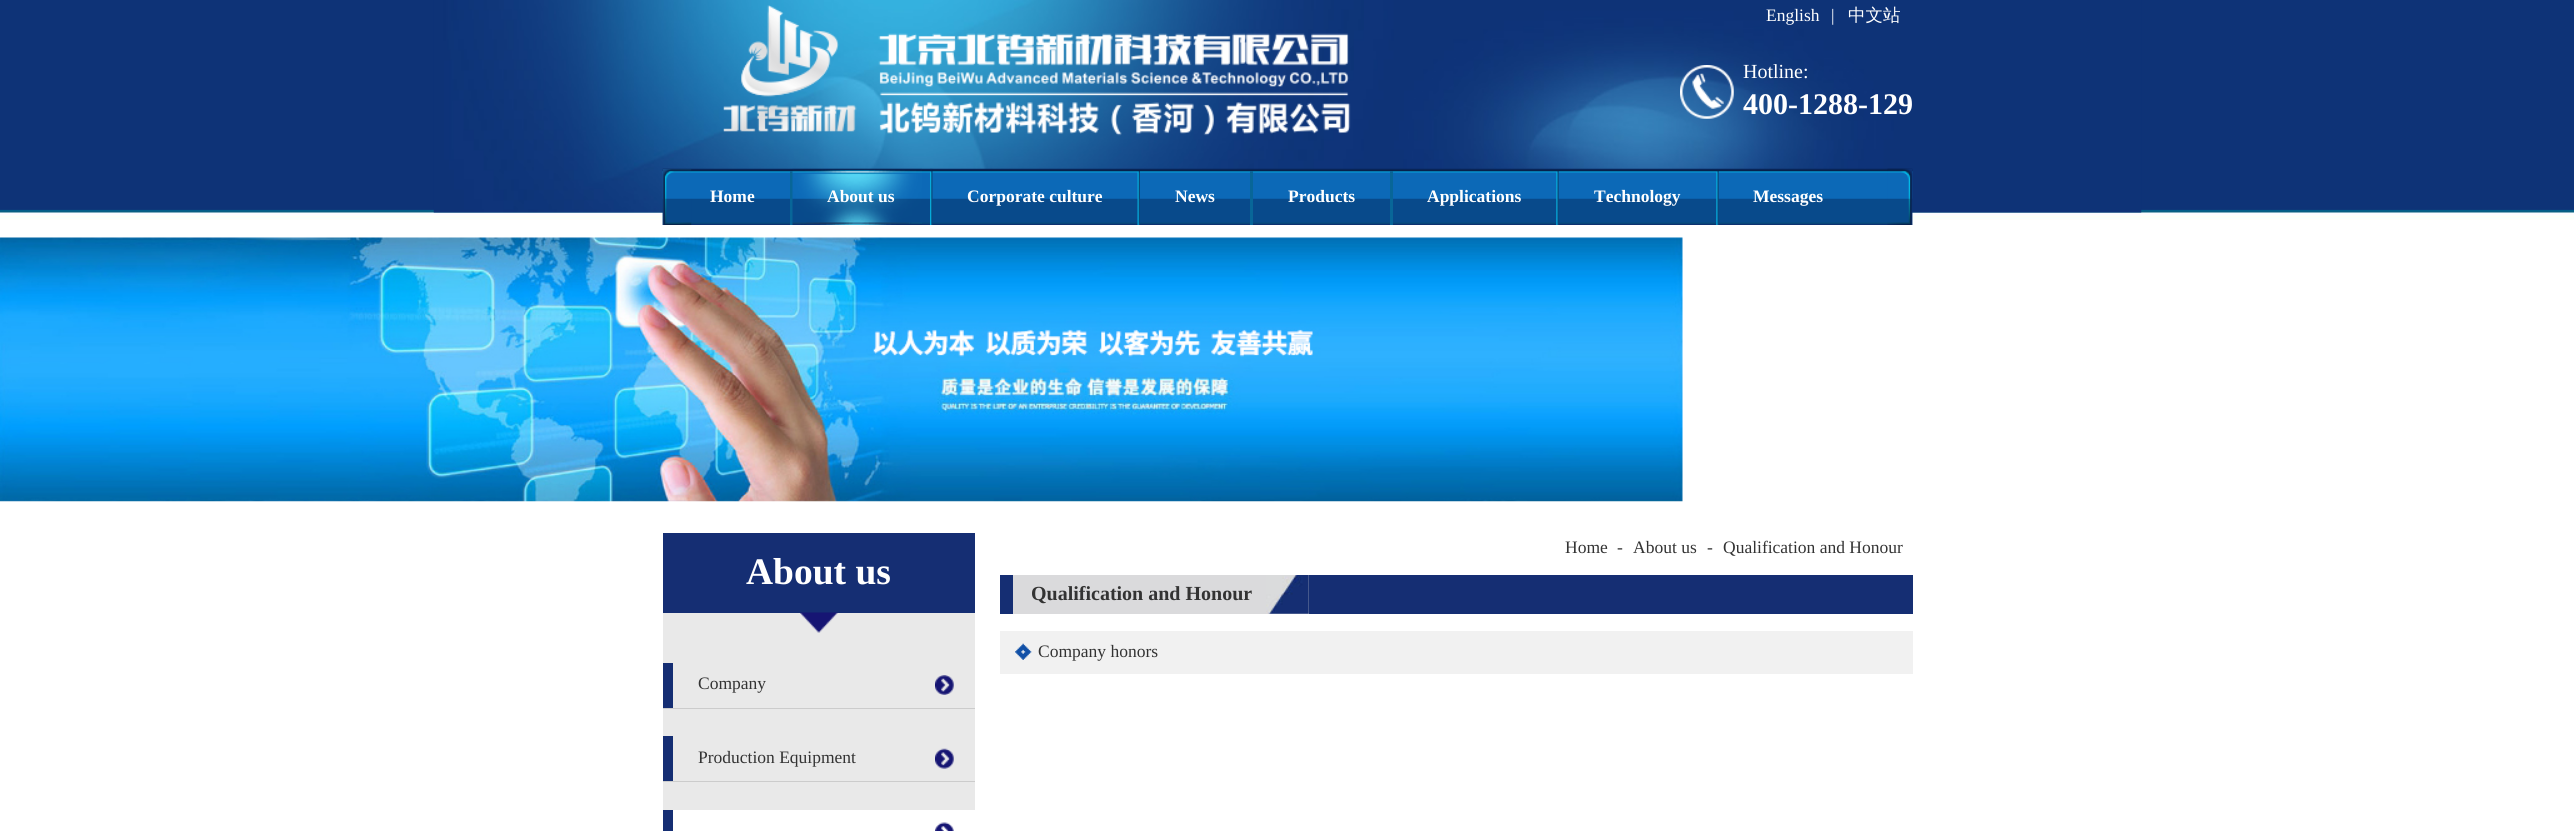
#include <cairo.h>
#include <math.h>
#include <stddef.h>

typedef struct { const char *family; double size; int italic, bold; unsigned color; } style_t;
static cairo_t *ctx;

static void ink(unsigned color) {
    cairo_set_source_rgb(ctx, (color >> 16) / 255.0, (color >> 8 & 255) / 255.0, (color & 255) / 255.0);
}

static void write(double x, double y, const char *s, const style_t *st) {
    cairo_select_font_face(ctx, st->family, st->italic ? CAIRO_FONT_SLANT_ITALIC : CAIRO_FONT_SLANT_NORMAL,
        st->bold ? CAIRO_FONT_WEIGHT_BOLD : CAIRO_FONT_WEIGHT_NORMAL);
    cairo_set_font_size(ctx, st->size);
    ink(st->color);
    cairo_move_to(ctx, x, y);
    cairo_show_text(ctx, s);
}

static void block(double x, double y, double w, double h, unsigned color) {
    ink(color);
    cairo_rectangle(ctx, x, y, w, h);
    cairo_fill(ctx);
}

static void paste(const char *path, double x, double y, double w, double h) {
    cairo_surface_t *image = cairo_image_surface_create_from_png(path);
    cairo_save(ctx);
    cairo_set_source_surface(ctx, image, x, y);
    cairo_rectangle(ctx, x, y, w, h);
    cairo_fill(ctx);
    cairo_restore(ctx);
    cairo_surface_destroy(image);
}

static const style_t s1 = {"Liberation Serif", 17.5, 0, 0, 0xffffff};
static const style_t s2 = {"WenQuanYi Zen Hei Medium", 17.5, 0, 0, 0xffffff};
static const style_t s3 = {"Liberation Serif", 20, 0, 0, 0xffffff};
static const style_t s4 = {"Liberation Serif", 30, 0, 1, 0xffffff};
static const style_t s5 = {"Liberation Serif", 17.5, 0, 1, 0xffffff};
static const style_t s6 = {"Liberation Serif", 37.5, 0, 1, 0xffffff};
static const style_t s7 = {"Liberation Serif", 17.5, 0, 0, 0x333333};
static const style_t s8 = {"Liberation Serif", 20, 0, 1, 0x333333};

int main(void) {
    cairo_surface_t *surface = cairo_image_surface_create(CAIRO_FORMAT_RGB24, 2574, 831);
    ctx = cairo_create(surface);
    cairo_font_options_t *options = cairo_font_options_create();
    cairo_font_options_set_hint_metrics(options, CAIRO_HINT_METRICS_OFF);
    cairo_font_options_set_hint_style(options, CAIRO_HINT_STYLE_NONE);
    cairo_set_font_options(ctx, options);
    cairo_set_miter_limit(ctx, 4);
    ink(0xffffff);
    cairo_paint(ctx);
    paste("pic1.png", 0, 0, 2574, 220);
    paste("pic2.png", 433, 0, 1709, 213);
    paste("pic3.png", 723, 5, 628, 131);
    write(1766, 21, "English", &s1);
    write(1831, 21, "|", &s1);
    write(1848, 21, "中文站", &s2);
    paste("pic4.png", 1680, 65, 54, 54);
    write(1743, 78, "Hotline:", &s3);
    write(1743, 114, "400-1288-129", &s4);
    paste("pic5.png", 662, 168, 1251, 57);
    paste("pic6.png", 1887, 168, 26, 57);
    paste("pic7.png", 662, 169, 30, 56);
    write(710, 202, "Home", &s5);
    block(790, 171, 3, 54, 0x086698);
    paste("pic8.png", 792, 168, 130, 57);
    write(827, 202, "About us", &s5);
    paste("pic9.png", 930, 168, 3, 57);
    write(967, 202, "Corporate culture", &s5);
    paste("pic10.png", 1137, 171, 3, 54);
    write(1175, 202, "News", &s5);
    block(1250, 171, 3, 54, 0x086698);
    write(1288, 202, "Products", &s5);
    block(1390, 171, 3, 54, 0x086698);
    write(1427, 202, "Applications", &s5);
    paste("pic11.png", 1556, 171, 3, 54);
    write(1594, 202, "Technology", &s5);
    paste("pic11.png", 1716, 171, 3, 54);
    write(1753, 202, "Messages", &s5);
    paste("pic12.png", 0, 237, 1683, 265);
    block(663, 533, 312, 80, 0x152e73);
    write(746, 584, "About us", &s6);
    block(663, 613, 312, 197, 0xe9e9e9);
    paste("pic13.png", 800, 612, 38, 21);
    block(663, 708, 312, 1, 0xcccccc);
    paste("pic14.png", 935, 675, 19, 20);
    block(663, 663, 10, 45, 0x152e73);
    write(698, 689, "Company", &s7);
    block(663, 781, 312, 1, 0xcccccc);
    paste("pic15.png", 935, 748, 19, 21);
    block(663, 736, 10, 45, 0x152e73);
    write(698, 763, "Production Equipment", &s7);
    paste("pic16.png", 935, 822, 19, 9);
    block(663, 810, 10, 21, 0x152e73);
    write(1565, 553, "Home", &s7);
    write(1617, 553, "-", &s7);
    write(1633, 553, "About us", &s7);
    write(1707, 553, "-", &s7);
    write(1723, 553, "Qualification and Honour", &s7);
    block(1000, 575, 913, 39, 0x152e73);
    block(1013, 575, 296, 39, 0xdadadc);
    paste("pic17.png", 1266, 575, 43, 39);
    write(1031, 600, "Qualification and Honour", &s8);
    block(1000, 631, 913, 43, 0xf1f1f1);
    paste("pic18.png", 1015, 643, 17, 17);
    write(1038, 657, "Company honors", &s7);
    cairo_surface_write_to_png(surface, "screenshot.png");
    cairo_font_options_destroy(options);
    cairo_destroy(ctx);
    cairo_surface_destroy(surface);
    return 0;
}
